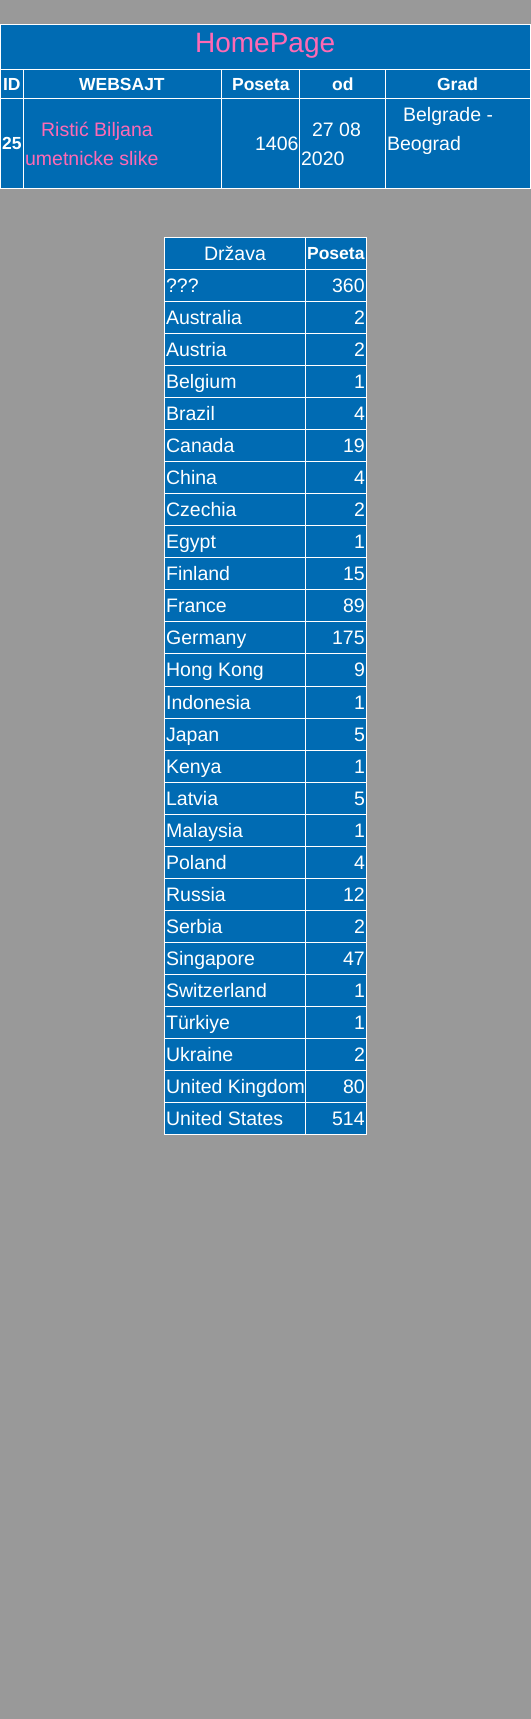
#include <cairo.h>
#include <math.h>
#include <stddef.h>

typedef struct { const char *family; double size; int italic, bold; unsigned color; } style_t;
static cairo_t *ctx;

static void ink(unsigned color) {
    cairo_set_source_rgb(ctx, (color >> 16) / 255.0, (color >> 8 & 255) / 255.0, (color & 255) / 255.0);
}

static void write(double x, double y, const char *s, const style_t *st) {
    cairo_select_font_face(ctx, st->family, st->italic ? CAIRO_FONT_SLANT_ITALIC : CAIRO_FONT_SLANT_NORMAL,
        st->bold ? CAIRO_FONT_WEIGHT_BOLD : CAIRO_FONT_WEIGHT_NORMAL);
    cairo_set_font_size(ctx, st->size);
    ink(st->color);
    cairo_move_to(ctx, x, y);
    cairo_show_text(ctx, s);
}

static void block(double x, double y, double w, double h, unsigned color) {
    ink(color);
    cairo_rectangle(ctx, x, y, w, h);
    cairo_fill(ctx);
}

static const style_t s1 = {"Liberation Sans", 28, 0, 0, 0xff69b4};
static const style_t s2 = {"Liberation Sans", 17.5, 0, 1, 0xffffff};
static const style_t s3 = {"Liberation Sans", 19.5, 0, 0, 0xff69b4};
static const style_t s4 = {"Liberation Sans", 19.5, 0, 0, 0xffffff};

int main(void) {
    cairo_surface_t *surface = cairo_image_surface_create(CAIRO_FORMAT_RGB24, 531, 1719);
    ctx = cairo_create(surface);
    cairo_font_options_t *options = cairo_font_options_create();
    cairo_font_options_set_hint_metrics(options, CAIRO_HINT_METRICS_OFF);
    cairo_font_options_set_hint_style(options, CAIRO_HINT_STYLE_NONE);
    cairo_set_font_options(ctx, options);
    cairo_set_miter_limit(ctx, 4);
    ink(0x999999);
    cairo_paint(ctx);
    block(1, 25, 529, 163, 0x006bb3);
    block(0, 24, 531, 1, 0xffffff);
    block(530, 24, 1, 165, 0xffffff);
    block(0, 188, 531, 1, 0xffffff);
    block(0, 24, 1, 165, 0xffffff);
    write(195, 52, "HomePage", &s1);
    block(385, 69, 146, 1, 0xffffff);
    block(385, 98, 146, 1, 0xffffff);
    block(385, 98, 1, 91, 0xffffff);
    block(299, 98, 87, 1, 0xffffff);
    block(385, 69, 1, 30, 0xffffff);
    block(299, 69, 87, 1, 0xffffff);
    block(299, 98, 1, 91, 0xffffff);
    block(221, 98, 79, 1, 0xffffff);
    block(299, 69, 1, 30, 0xffffff);
    block(221, 69, 79, 1, 0xffffff);
    block(221, 98, 1, 91, 0xffffff);
    block(23, 98, 199, 1, 0xffffff);
    block(221, 69, 1, 30, 0xffffff);
    block(23, 69, 199, 1, 0xffffff);
    block(23, 98, 1, 91, 0xffffff);
    block(0, 98, 24, 1, 0xffffff);
    block(23, 69, 1, 30, 0xffffff);
    block(0, 69, 24, 1, 0xffffff);
    write(3, 90, "ID", &s2);
    write(79, 90, "WEBSAJT", &s2);
    write(232, 90, "Poseta", &s2);
    write(332, 90, "od", &s2);
    write(437, 90, "Grad", &s2);
    write(2, 149, "25", &s2);
    write(41, 136, "Ristić Biljana", &s3);
    write(25, 165, "umetnicke slike", &s3);
    write(255, 150, "1406", &s4);
    write(312, 136, "27 08", &s4);
    write(301, 165, "2020", &s4);
    write(403, 121, "Belgrade -", &s4);
    write(387, 150, "Beograd", &s4);
    block(165, 238, 201, 896, 0x006bb3);
    block(164, 237, 203, 1, 0xffffff);
    block(366, 237, 1, 898, 0xffffff);
    block(164, 1134, 203, 1, 0xffffff);
    block(164, 237, 1, 898, 0xffffff);
    write(204, 260, "Država", &s4);
    block(305, 269, 62, 1, 0xffffff);
    block(305, 301, 62, 1, 0xffffff);
    block(305, 333, 62, 1, 0xffffff);
    block(305, 365, 62, 1, 0xffffff);
    block(305, 397, 62, 1, 0xffffff);
    block(305, 429, 62, 1, 0xffffff);
    block(305, 461, 62, 1, 0xffffff);
    block(305, 493, 62, 1, 0xffffff);
    block(305, 525, 62, 1, 0xffffff);
    block(305, 557, 62, 1, 0xffffff);
    block(305, 589, 62, 1, 0xffffff);
    block(305, 621, 62, 1, 0xffffff);
    block(305, 653, 62, 1, 0xffffff);
    block(305, 686, 62, 1, 0xffffff);
    block(305, 718, 62, 1, 0xffffff);
    block(305, 750, 62, 1, 0xffffff);
    block(305, 782, 62, 1, 0xffffff);
    block(305, 814, 62, 1, 0xffffff);
    block(305, 846, 62, 1, 0xffffff);
    block(305, 878, 62, 1, 0xffffff);
    block(305, 910, 62, 1, 0xffffff);
    block(305, 942, 62, 1, 0xffffff);
    block(305, 974, 62, 1, 0xffffff);
    block(305, 1006, 62, 1, 0xffffff);
    block(305, 1038, 62, 1, 0xffffff);
    block(305, 1070, 62, 1, 0xffffff);
    block(305, 1102, 62, 1, 0xffffff);
    block(305, 1102, 1, 33, 0xffffff);
    block(164, 1102, 142, 1, 0xffffff);
    block(305, 1070, 1, 33, 0xffffff);
    block(164, 1070, 142, 1, 0xffffff);
    block(305, 1038, 1, 33, 0xffffff);
    block(164, 1038, 142, 1, 0xffffff);
    block(305, 1006, 1, 33, 0xffffff);
    block(164, 1006, 142, 1, 0xffffff);
    block(305, 974, 1, 33, 0xffffff);
    block(164, 974, 142, 1, 0xffffff);
    block(305, 942, 1, 33, 0xffffff);
    block(164, 942, 142, 1, 0xffffff);
    block(305, 910, 1, 33, 0xffffff);
    block(164, 910, 142, 1, 0xffffff);
    block(305, 878, 1, 33, 0xffffff);
    block(164, 878, 142, 1, 0xffffff);
    block(305, 846, 1, 33, 0xffffff);
    block(164, 846, 142, 1, 0xffffff);
    block(305, 814, 1, 33, 0xffffff);
    block(164, 814, 142, 1, 0xffffff);
    block(305, 782, 1, 33, 0xffffff);
    block(164, 782, 142, 1, 0xffffff);
    block(305, 750, 1, 33, 0xffffff);
    block(164, 750, 142, 1, 0xffffff);
    block(305, 718, 1, 33, 0xffffff);
    block(164, 718, 142, 1, 0xffffff);
    block(305, 686, 1, 33, 0xffffff);
    block(164, 686, 142, 1, 0xffffff);
    block(305, 653, 1, 34, 0xffffff);
    block(164, 653, 142, 1, 0xffffff);
    block(305, 621, 1, 33, 0xffffff);
    block(164, 621, 142, 1, 0xffffff);
    block(305, 589, 1, 33, 0xffffff);
    block(164, 589, 142, 1, 0xffffff);
    block(305, 557, 1, 33, 0xffffff);
    block(164, 557, 142, 1, 0xffffff);
    block(305, 525, 1, 33, 0xffffff);
    block(164, 525, 142, 1, 0xffffff);
    block(305, 493, 1, 33, 0xffffff);
    block(164, 493, 142, 1, 0xffffff);
    block(305, 461, 1, 33, 0xffffff);
    block(164, 461, 142, 1, 0xffffff);
    block(305, 429, 1, 33, 0xffffff);
    block(164, 429, 142, 1, 0xffffff);
    block(305, 397, 1, 33, 0xffffff);
    block(164, 397, 142, 1, 0xffffff);
    block(305, 365, 1, 33, 0xffffff);
    block(164, 365, 142, 1, 0xffffff);
    block(305, 333, 1, 33, 0xffffff);
    block(164, 333, 142, 1, 0xffffff);
    block(305, 301, 1, 33, 0xffffff);
    block(164, 301, 142, 1, 0xffffff);
    block(305, 269, 1, 33, 0xffffff);
    block(164, 269, 142, 1, 0xffffff);
    block(305, 237, 1, 33, 0xffffff);
    write(307, 259, "Poseta", &s2);
    write(166, 292, "?\077?", &s4);
    write(332, 292, "360", &s4);
    write(166, 324, "Australia", &s4);
    write(354, 324, "2", &s4);
    write(166, 356, "Austria", &s4);
    write(354, 356, "2", &s4);
    write(166, 388, "Belgium", &s4);
    write(354, 388, "1", &s4);
    write(166, 420, "Brazil", &s4);
    write(354, 420, "4", &s4);
    write(166, 452, "Canada", &s4);
    write(343, 452, "19", &s4);
    write(166, 484, "China", &s4);
    write(354, 484, "4", &s4);
    write(166, 516, "Czechia", &s4);
    write(354, 516, "2", &s4);
    write(166, 548, "Egypt", &s4);
    write(354, 548, "1", &s4);
    write(166, 580, "Finland", &s4);
    write(343, 580, "15", &s4);
    write(166, 612, "France", &s4);
    write(343, 612, "89", &s4);
    write(166, 644, "Germany", &s4);
    write(332, 644, "175", &s4);
    write(166, 676, "Hong Kong", &s4);
    write(354, 676, "9", &s4);
    write(166, 709, "Indonesia", &s4);
    write(354, 709, "1", &s4);
    write(166, 741, "Japan", &s4);
    write(354, 741, "5", &s4);
    write(166, 773, "Kenya", &s4);
    write(354, 773, "1", &s4);
    write(166, 805, "Latvia", &s4);
    write(354, 805, "5", &s4);
    write(166, 837, "Malaysia", &s4);
    write(354, 837, "1", &s4);
    write(166, 869, "Poland", &s4);
    write(354, 869, "4", &s4);
    write(166, 901, "Russia", &s4);
    write(343, 901, "12", &s4);
    write(166, 933, "Serbia", &s4);
    write(354, 933, "2", &s4);
    write(166, 965, "Singapore", &s4);
    write(343, 965, "47", &s4);
    write(166, 997, "Switzerland", &s4);
    write(354, 997, "1", &s4);
    write(166, 1029, "Türkiye", &s4);
    write(354, 1029, "1", &s4);
    write(166, 1061, "Ukraine", &s4);
    write(354, 1061, "2", &s4);
    write(166, 1093, "United Kingdom", &s4);
    write(343, 1093, "80", &s4);
    write(166, 1125, "United States", &s4);
    write(332, 1125, "514", &s4);
    cairo_surface_write_to_png(surface, "screenshot.png");
    cairo_font_options_destroy(options);
    cairo_destroy(ctx);
    cairo_surface_destroy(surface);
    return 0;
}
